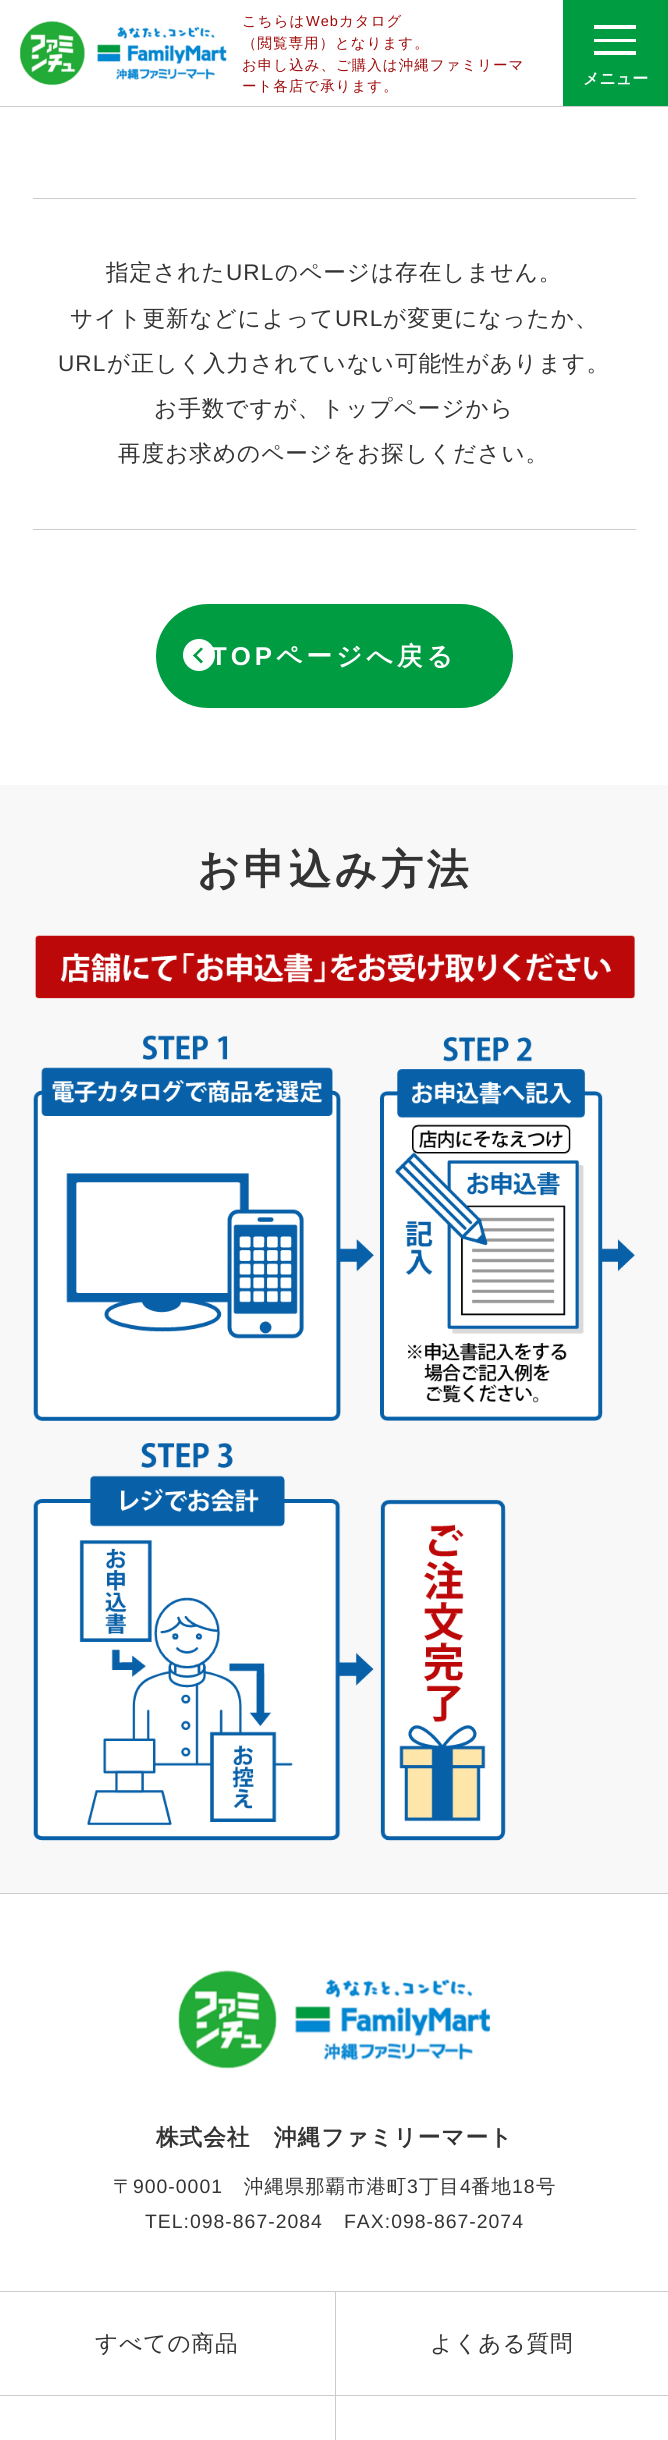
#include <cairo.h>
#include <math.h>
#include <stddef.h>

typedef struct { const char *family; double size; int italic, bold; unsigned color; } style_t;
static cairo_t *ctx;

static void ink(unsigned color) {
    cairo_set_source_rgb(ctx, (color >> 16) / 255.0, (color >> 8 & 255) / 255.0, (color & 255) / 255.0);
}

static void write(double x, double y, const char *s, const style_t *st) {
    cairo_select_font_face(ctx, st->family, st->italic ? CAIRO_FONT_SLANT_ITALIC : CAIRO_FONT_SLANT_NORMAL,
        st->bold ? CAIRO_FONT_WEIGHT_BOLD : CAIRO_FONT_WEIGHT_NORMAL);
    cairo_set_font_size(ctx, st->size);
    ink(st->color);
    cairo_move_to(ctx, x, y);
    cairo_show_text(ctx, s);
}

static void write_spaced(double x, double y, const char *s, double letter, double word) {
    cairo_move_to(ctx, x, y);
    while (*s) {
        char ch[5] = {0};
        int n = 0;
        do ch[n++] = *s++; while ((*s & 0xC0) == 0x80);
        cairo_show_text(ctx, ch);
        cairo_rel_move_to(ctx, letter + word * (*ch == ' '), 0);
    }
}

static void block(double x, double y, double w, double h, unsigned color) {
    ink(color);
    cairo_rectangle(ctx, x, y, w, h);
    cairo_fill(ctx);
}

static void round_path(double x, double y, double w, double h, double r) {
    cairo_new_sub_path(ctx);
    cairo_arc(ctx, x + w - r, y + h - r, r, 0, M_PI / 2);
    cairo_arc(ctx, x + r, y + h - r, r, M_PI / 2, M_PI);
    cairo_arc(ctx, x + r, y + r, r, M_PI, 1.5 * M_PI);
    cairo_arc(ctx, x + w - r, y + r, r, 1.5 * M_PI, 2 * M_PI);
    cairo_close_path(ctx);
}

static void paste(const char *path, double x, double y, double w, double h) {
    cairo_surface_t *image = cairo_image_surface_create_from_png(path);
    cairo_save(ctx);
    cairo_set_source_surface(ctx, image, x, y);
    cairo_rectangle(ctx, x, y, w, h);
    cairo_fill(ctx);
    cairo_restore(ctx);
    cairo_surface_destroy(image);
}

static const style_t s1 = {"WenQuanYi Zen Hei", 16, 0, 1, 0xffffff};

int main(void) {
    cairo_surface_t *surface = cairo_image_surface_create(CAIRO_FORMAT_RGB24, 668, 2440);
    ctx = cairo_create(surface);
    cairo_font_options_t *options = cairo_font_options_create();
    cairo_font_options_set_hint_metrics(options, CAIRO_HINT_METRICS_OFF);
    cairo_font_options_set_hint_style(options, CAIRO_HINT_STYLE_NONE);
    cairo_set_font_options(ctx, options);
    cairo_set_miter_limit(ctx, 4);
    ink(0xffffff);
    cairo_paint(ctx);
    block(0, 106, 668, 1, 0xcccccc);
    paste("pic1.png", 20, 21, 207, 65);
    cairo_select_font_face(ctx, "WenQuanYi Zen Hei Medium", CAIRO_FONT_SLANT_NORMAL, CAIRO_FONT_WEIGHT_NORMAL);
    cairo_set_font_size(ctx, 14.5);
    ink(0x9f0909);
    write_spaced(242, 26, "こちらは", 1, 0);
    cairo_select_font_face(ctx, "Liberation Sans", CAIRO_FONT_SLANT_NORMAL, CAIRO_FONT_WEIGHT_NORMAL);
    write_spaced(306, 26, "Web", 1, 0);
    cairo_select_font_face(ctx, "WenQuanYi Zen Hei Medium", CAIRO_FONT_SLANT_NORMAL, CAIRO_FONT_WEIGHT_NORMAL);
    write_spaced(339, 26, "カタログ", 1, 0);
    write_spaced(242, 48, "（閲覧専用）となります。", 1, 0);
    write_spaced(242, 70, "お申し込み、ご購入は沖縄ファミリーマ", 1, 0);
    write_spaced(242, 91, "ート各店で承ります。", 1, 0);
    block(563, 0, 105, 106, 0x009c41);
    block(594, 25, 42, 4, 0xffffff);
    block(594, 39, 42, 3, 0xffffff);
    block(594, 51, 42, 4, 0xffffff);
    write(583, 84, "メニュー", &s1);
    block(33, 198, 603, 1, 0xcccccc);
    block(33, 529, 603, 1, 0xcccccc);
    cairo_select_font_face(ctx, "WenQuanYi Zen Hei Medium", CAIRO_FONT_SLANT_NORMAL, CAIRO_FONT_WEIGHT_NORMAL);
    cairo_set_font_size(ctx, 22.6);
    ink(0x333333);
    write_spaced(106, 280, "指定された", 1, 0);
    cairo_select_font_face(ctx, "Liberation Sans", CAIRO_FONT_SLANT_NORMAL, CAIRO_FONT_WEIGHT_NORMAL);
    write_spaced(226, 280, "URL", 1, 0);
    cairo_select_font_face(ctx, "WenQuanYi Zen Hei Medium", CAIRO_FONT_SLANT_NORMAL, CAIRO_FONT_WEIGHT_NORMAL);
    write_spaced(275, 280, "のページは存在しません。", 1, 0);
    write_spaced(70, 326, "サイト更新などによって", 1, 0);
    cairo_select_font_face(ctx, "Liberation Sans", CAIRO_FONT_SLANT_NORMAL, CAIRO_FONT_WEIGHT_NORMAL);
    write_spaced(335, 326, "URL", 1, 0);
    cairo_select_font_face(ctx, "WenQuanYi Zen Hei Medium", CAIRO_FONT_SLANT_NORMAL, CAIRO_FONT_WEIGHT_NORMAL);
    write_spaced(383, 326, "が変更になったか、", 1, 0);
    cairo_select_font_face(ctx, "Liberation Sans", CAIRO_FONT_SLANT_NORMAL, CAIRO_FONT_WEIGHT_NORMAL);
    write_spaced(58, 371, "URL", 1, 0);
    cairo_select_font_face(ctx, "WenQuanYi Zen Hei Medium", CAIRO_FONT_SLANT_NORMAL, CAIRO_FONT_WEIGHT_NORMAL);
    write_spaced(107, 371, "が正しく入力されていない可能性があります。", 1, 0);
    write_spaced(154, 416, "お手数ですが、トップページから", 1, 0);
    write_spaced(118, 461, "再度お求めのページをお探しください。", 1, 0);
    ink(0x009c41);
    round_path(156, 604, 357, 104, 52);
    cairo_fill(ctx);
    ink(0xffffff);
    cairo_arc(ctx, 199, 655, 16, 0, 2 * M_PI);
    cairo_fill(ctx);
    cairo_select_font_face(ctx, "Liberation Sans", CAIRO_FONT_SLANT_NORMAL, CAIRO_FONT_WEIGHT_BOLD);
    cairo_set_font_size(ctx, 25.75);
    write_spaced(211, 665, "TOP", 4, 0);
    cairo_select_font_face(ctx, "WenQuanYi Zen Hei", CAIRO_FONT_SLANT_NORMAL, CAIRO_FONT_WEIGHT_BOLD);
    write_spaced(276, 665, "ページへ戻る", 4, 0);
    ink(0x009c41);
    cairo_new_path(ctx);
    cairo_move_to(ctx, 201, 663.5);
    cairo_line_to(ctx, 193, 655.5);
    cairo_line_to(ctx, 195, 653.5);
    cairo_line_to(ctx, 203, 661.5);
    cairo_close_path(ctx);
    cairo_fill(ctx);
    cairo_new_path(ctx);
    cairo_move_to(ctx, 195, 657);
    cairo_line_to(ctx, 193, 655.5);
    cairo_line_to(ctx, 201, 647.5);
    cairo_line_to(ctx, 203, 649);
    cairo_close_path(ctx);
    cairo_fill(ctx);
    block(0, 785, 668, 1108, 0xf8f8f8);
    cairo_set_font_size(ctx, 42);
    ink(0x333333);
    write_spaced(197, 884, "お申込み方法", 3.5, 0);
    paste("pic2.png", 33, 935, 602, 906);
    block(0, 1893, 668, 1, 0xcccccc);
    paste("pic3.png", 178, 1970, 312, 99);
    cairo_set_font_size(ctx, 22.6);
    ink(0x333333);
    write_spaced(156, 2145, "株式会社　沖縄ファミリーマート", 1, 0);
    cairo_select_font_face(ctx, "WenQuanYi Zen Hei Medium", CAIRO_FONT_SLANT_NORMAL, CAIRO_FONT_WEIGHT_NORMAL);
    cairo_set_font_size(ctx, 19.4);
    write_spaced(113, 2193, "〒", 1, 0);
    cairo_select_font_face(ctx, "Liberation Sans", CAIRO_FONT_SLANT_NORMAL, CAIRO_FONT_WEIGHT_NORMAL);
    write_spaced(133, 2193, "900-0001", 1, 0);
    cairo_select_font_face(ctx, "WenQuanYi Zen Hei Medium", CAIRO_FONT_SLANT_NORMAL, CAIRO_FONT_WEIGHT_NORMAL);
    write_spaced(244, 2193, "沖縄県那覇市港町", 1, 0);
    cairo_select_font_face(ctx, "Liberation Sans", CAIRO_FONT_SLANT_NORMAL, CAIRO_FONT_WEIGHT_NORMAL);
    write_spaced(407, 2193, "3", 1, 0);
    cairo_select_font_face(ctx, "WenQuanYi Zen Hei Medium", CAIRO_FONT_SLANT_NORMAL, CAIRO_FONT_WEIGHT_NORMAL);
    write_spaced(419, 2193, "丁目", 1, 0);
    cairo_select_font_face(ctx, "Liberation Sans", CAIRO_FONT_SLANT_NORMAL, CAIRO_FONT_WEIGHT_NORMAL);
    write_spaced(460, 2193, "4", 1, 0);
    cairo_select_font_face(ctx, "WenQuanYi Zen Hei Medium", CAIRO_FONT_SLANT_NORMAL, CAIRO_FONT_WEIGHT_NORMAL);
    write_spaced(471, 2193, "番地", 1, 0);
    cairo_select_font_face(ctx, "Liberation Sans", CAIRO_FONT_SLANT_NORMAL, CAIRO_FONT_WEIGHT_NORMAL);
    write_spaced(512, 2193, "18", 1, 0);
    cairo_select_font_face(ctx, "WenQuanYi Zen Hei Medium", CAIRO_FONT_SLANT_NORMAL, CAIRO_FONT_WEIGHT_NORMAL);
    write_spaced(536, 2193, "号", 1, 0);
    cairo_select_font_face(ctx, "Liberation Sans", CAIRO_FONT_SLANT_NORMAL, CAIRO_FONT_WEIGHT_NORMAL);
    write_spaced(145, 2228, "TEL:098-867-2084", 1, 0);
    write_spaced(344, 2228, "FAX:098-867-2074", 1, 0);
    block(0, 2291, 668, 1, 0xcccccc);
    cairo_select_font_face(ctx, "WenQuanYi Zen Hei Medium", CAIRO_FONT_SLANT_NORMAL, CAIRO_FONT_WEIGHT_NORMAL);
    cairo_set_font_size(ctx, 22.6);
    ink(0x333333);
    write_spaced(95, 2351, "すべての商品", 1, 0);
    block(335, 2291, 1, 104, 0xcccccc);
    ink(0x333333);
    write_spaced(430, 2351, "よくある質問", 1, 0);
    block(0, 2395, 668, 1, 0xcccccc);
    block(335, 2395, 1, 45, 0xcccccc);
    cairo_surface_write_to_png(surface, "screenshot.png");
    cairo_font_options_destroy(options);
    cairo_destroy(ctx);
    cairo_surface_destroy(surface);
    return 0;
}
